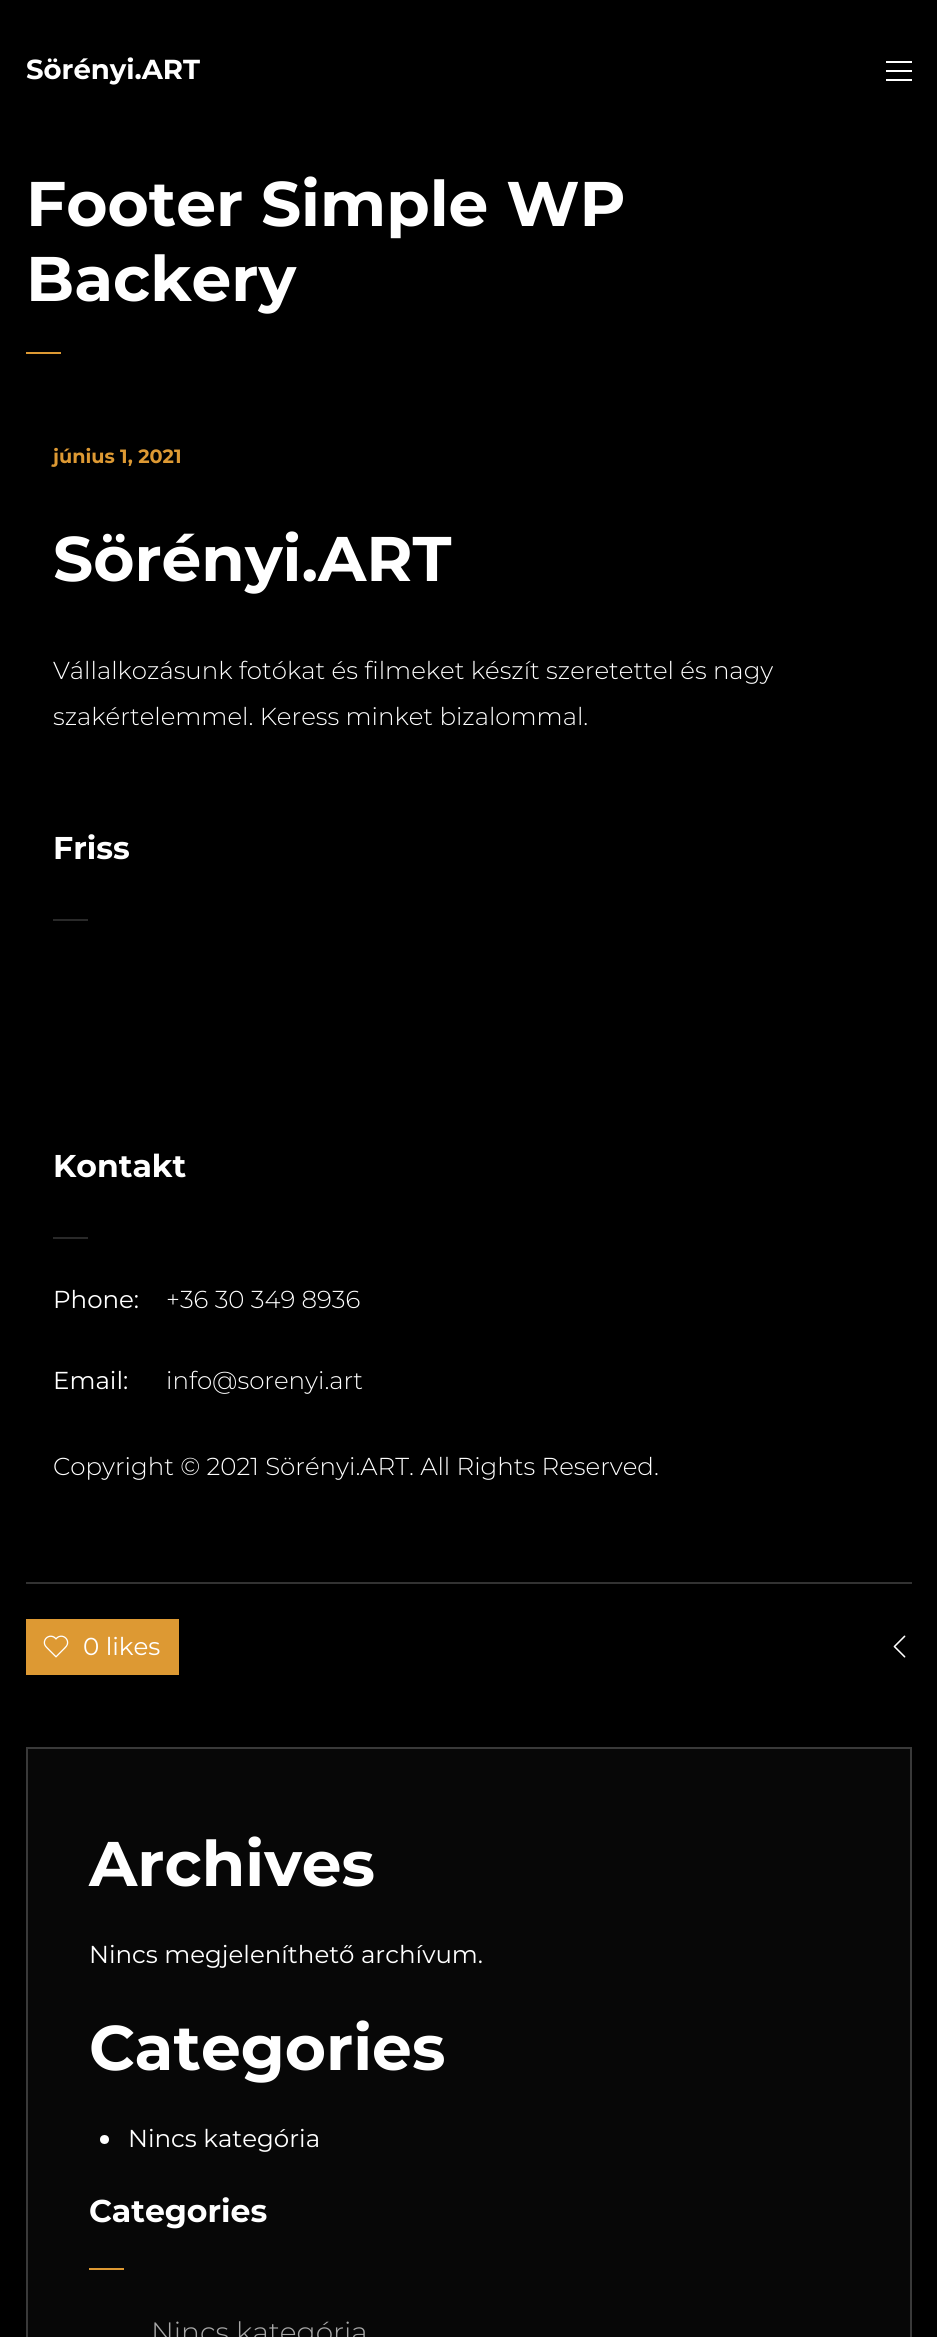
#include <cairo.h>
#include <math.h>
#include <stddef.h>

typedef struct { const char *family; double size; int italic, bold; unsigned color; } style_t;
static cairo_t *ctx;

static void ink(unsigned color) {
    cairo_set_source_rgb(ctx, (color >> 16) / 255.0, (color >> 8 & 255) / 255.0, (color & 255) / 255.0);
}

static void write(double x, double y, const char *s, const style_t *st) {
    cairo_select_font_face(ctx, st->family, st->italic ? CAIRO_FONT_SLANT_ITALIC : CAIRO_FONT_SLANT_NORMAL,
        st->bold ? CAIRO_FONT_WEIGHT_BOLD : CAIRO_FONT_WEIGHT_NORMAL);
    cairo_set_font_size(ctx, st->size);
    ink(st->color);
    cairo_move_to(ctx, x, y);
    cairo_show_text(ctx, s);
}

static void block(double x, double y, double w, double h, unsigned color) {
    ink(color);
    cairo_rectangle(ctx, x, y, w, h);
    cairo_fill(ctx);
}

static void paste(const char *path, double x, double y, double w, double h) {
    cairo_surface_t *image = cairo_image_surface_create_from_png(path);
    cairo_save(ctx);
    cairo_set_source_surface(ctx, image, x, y);
    cairo_rectangle(ctx, x, y, w, h);
    cairo_fill(ctx);
    cairo_restore(ctx);
    cairo_surface_destroy(image);
}

static const style_t s1 = {"Montserrat", 27.5, 0, 1, 0xffffff};
static const style_t s2 = {"Montserrat", 63, 0, 1, 0xffffff};
static const style_t s3 = {"Montserrat", 19.25, 0, 1, 0xdd9933};
static const style_t s4 = {"Montserrat Light", 24.5, 0, 0, 0xffffff};
static const style_t s5 = {"Montserrat", 31.5, 0, 1, 0xffffff};
static const style_t s6 = {"Montserrat", 24.5, 0, 0, 0xffffff};
static const style_t s7 = {"Montserrat Light", 28, 0, 0, 0xa8a8a8};

int main(void) {
    cairo_surface_t *surface = cairo_image_surface_create(CAIRO_FORMAT_RGB24, 937, 2337);
    ctx = cairo_create(surface);
    cairo_font_options_t *options = cairo_font_options_create();
    cairo_font_options_set_hint_metrics(options, CAIRO_HINT_METRICS_OFF);
    cairo_font_options_set_hint_style(options, CAIRO_HINT_STYLE_NONE);
    cairo_set_font_options(ctx, options);
    cairo_set_miter_limit(ctx, 4);
    ink(0x000000);
    cairo_paint(ctx);
    write(26, 79, "Sörényi.ART", &s1);
    block(886, 61, 26, 2, 0xffffff);
    block(886, 70, 26, 2, 0xffffff);
    block(886, 79, 26, 2, 0xffffff);
    write(26, 226, "Footer Simple WP", &s2);
    write(26, 301, "Backery", &s2);
    block(26, 352, 35, 2, 0xdd9933);
    write(53, 463, "június 1, 2021", &s3);
    write(53, 581, "Sörényi.ART", &s2);
    write(53, 679, "Vállalkozásunk fotókat és filmeket készít szeretettel és nagy", &s4);
    write(53, 725, "szakértelemmel. Keress minket bizalommal.", &s4);
    write(53, 859, "Friss", &s5);
    block(53, 919, 35, 2, 0x292929);
    write(53, 1177, "Kontakt", &s5);
    block(53, 1237, 35, 2, 0x292929);
    write(53, 1308, "Phone:", &s6);
    write(166, 1308, "+36 30 349 8936", &s4);
    write(53, 1389, "Email:", &s6);
    write(166, 1389, "info@sorenyi.art", &s4);
    write(53, 1475, "Copyright © 2021 Sörényi.ART. All Rights Reserved.", &s4);
    block(26, 1582, 886, 2, 0x323232);
    block(26, 1619, 153, 56, 0xdd9933);
    paste("pic1.png", 43, 1635, 26, 23);
    write(83, 1655, "0 likes", &s6);
    paste("pic2.png", 893, 1635, 13, 23);
    ink(0x070707);
    cairo_rectangle(ctx, 27, 1748, 884, 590);
    cairo_fill_preserve(ctx);
    ink(0x393939);
    cairo_stroke(ctx);
    write(89, 1886, "Archives", &s2);
    write(89, 1963, "Nincs megjeleníthető archívum.", &s6);
    write(89, 2070, "Categories", &s2);
    cairo_new_path(ctx);
    cairo_arc(ctx, 104.5, 2139.5, 4.5, 0, 2 * M_PI);
    cairo_fill(ctx);
    write(128, 2147, "Nincs kategória", &s6);
    write(89, 2222, "Categories", &s5);
    block(89, 2268, 35, 2, 0xdd9933);
    write(151, 2342, "Nincs kategória", &s7);
    cairo_surface_write_to_png(surface, "screenshot.png");
    cairo_font_options_destroy(options);
    cairo_destroy(ctx);
    cairo_surface_destroy(surface);
    return 0;
}
